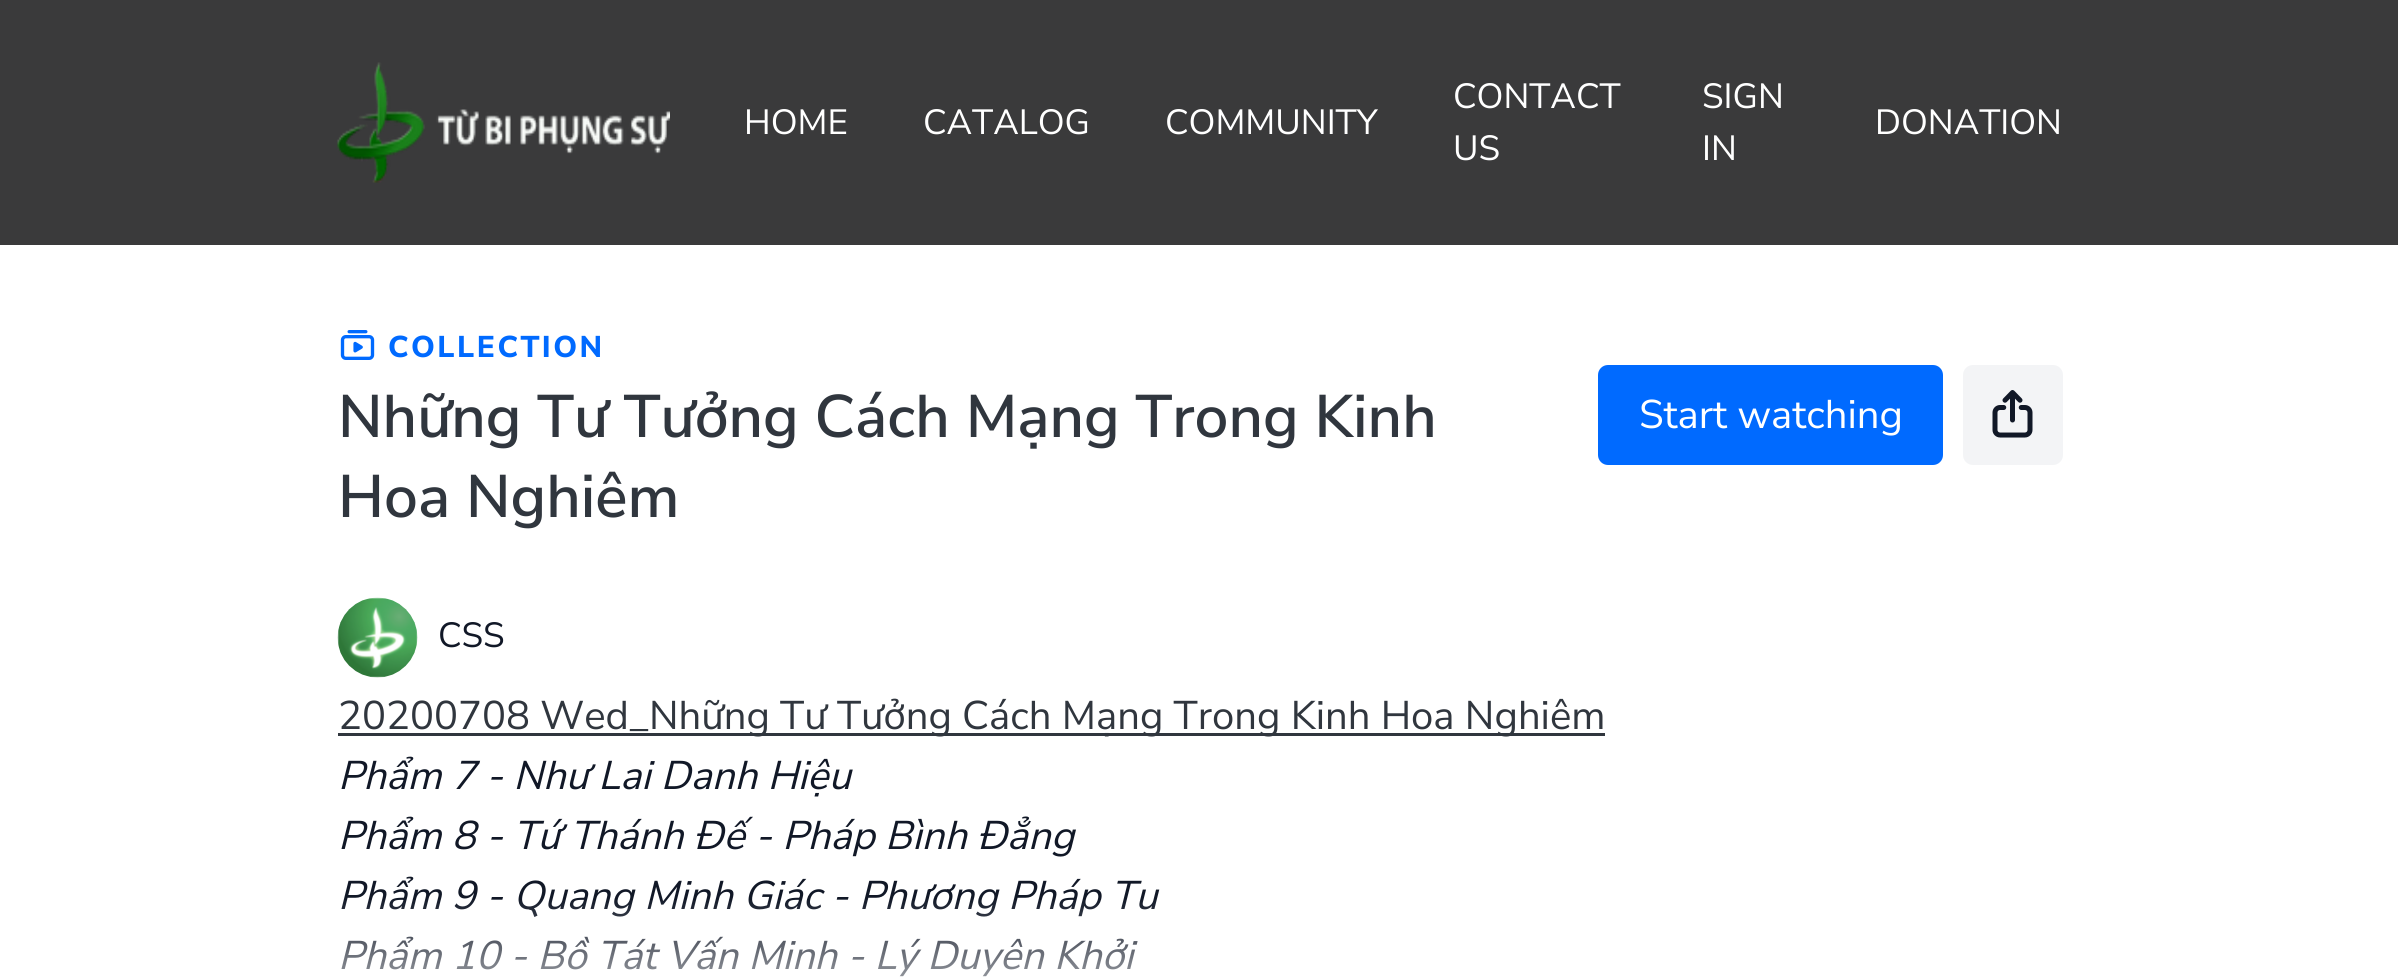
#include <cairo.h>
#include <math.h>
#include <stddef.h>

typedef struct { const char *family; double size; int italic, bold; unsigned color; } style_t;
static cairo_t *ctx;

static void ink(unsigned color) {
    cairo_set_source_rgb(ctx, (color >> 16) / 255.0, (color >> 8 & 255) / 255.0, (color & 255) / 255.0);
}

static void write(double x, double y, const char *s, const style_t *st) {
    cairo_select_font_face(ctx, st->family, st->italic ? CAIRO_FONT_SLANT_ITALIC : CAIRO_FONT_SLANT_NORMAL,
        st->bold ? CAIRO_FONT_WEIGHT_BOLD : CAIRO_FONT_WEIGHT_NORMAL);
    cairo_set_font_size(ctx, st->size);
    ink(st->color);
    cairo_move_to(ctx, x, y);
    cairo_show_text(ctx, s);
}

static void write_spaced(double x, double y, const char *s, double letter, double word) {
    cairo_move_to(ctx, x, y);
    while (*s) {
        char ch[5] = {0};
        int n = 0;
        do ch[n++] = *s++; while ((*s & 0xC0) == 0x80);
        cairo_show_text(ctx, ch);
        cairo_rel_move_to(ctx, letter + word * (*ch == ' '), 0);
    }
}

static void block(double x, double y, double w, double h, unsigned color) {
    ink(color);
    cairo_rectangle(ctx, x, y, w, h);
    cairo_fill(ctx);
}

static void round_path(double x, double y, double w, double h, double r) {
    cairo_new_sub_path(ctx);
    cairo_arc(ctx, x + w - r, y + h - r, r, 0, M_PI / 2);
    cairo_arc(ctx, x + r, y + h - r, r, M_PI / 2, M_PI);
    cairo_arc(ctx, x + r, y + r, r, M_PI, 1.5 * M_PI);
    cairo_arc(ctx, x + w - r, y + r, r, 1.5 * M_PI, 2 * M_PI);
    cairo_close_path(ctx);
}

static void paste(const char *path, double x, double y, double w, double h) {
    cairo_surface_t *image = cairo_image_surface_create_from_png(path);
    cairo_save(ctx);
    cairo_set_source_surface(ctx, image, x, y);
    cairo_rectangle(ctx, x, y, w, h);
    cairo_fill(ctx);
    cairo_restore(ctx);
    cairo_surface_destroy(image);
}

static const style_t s1 = {"Nunito Sans", 35, 0, 0, 0xffffff};
static const style_t s2 = {"Nunito Sans SemiBold", 60, 0, 0, 0x30363e};
static const style_t s3 = {"Nunito Sans", 40, 0, 0, 0xffffff};
static const style_t s4 = {"Nunito Sans", 35, 0, 0, 0x111827};
static const style_t s5 = {"Nunito Sans", 40, 0, 0, 0x30363e};
static const style_t s6 = {"Nunito Sans", 40, 1, 0, 0x111827};

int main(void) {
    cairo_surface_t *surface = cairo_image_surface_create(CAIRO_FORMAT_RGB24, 2398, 978);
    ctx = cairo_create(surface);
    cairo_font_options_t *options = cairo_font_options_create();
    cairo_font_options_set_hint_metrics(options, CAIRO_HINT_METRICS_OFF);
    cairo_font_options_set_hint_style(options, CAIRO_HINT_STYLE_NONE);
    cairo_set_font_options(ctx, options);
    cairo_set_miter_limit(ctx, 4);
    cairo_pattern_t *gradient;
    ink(0xffffff);
    cairo_paint(ctx);
    block(0, 0, 2398, 245, 0x3a3a3b);
    paste("pic1.png", 337, 62, 333, 121);
    write(744, 134, "HOME", &s1);
    write(923, 134, "CATALOG", &s1);
    write(1165, 134, "COMMUNITY", &s1);
    write(1453, 108, "CONTACT", &s1);
    write(1453, 160, "US", &s1);
    write(1702, 108, "SIGN", &s1);
    write(1702, 160, "IN", &s1);
    write(1875, 134, "DONATION", &s1);
    paste("pic2.png", 340, 330, 35, 30);
    cairo_select_font_face(ctx, "Nunito Sans ExtraBold", CAIRO_FONT_SLANT_NORMAL, CAIRO_FONT_WEIGHT_NORMAL);
    cairo_set_font_size(ctx, 30);
    ink(0x006aff);
    write_spaced(388, 357, "COLLECTION", 2.5, 0);
    write(338, 437, "Những Tư Tưởng Cách Mạng Trong Kinh", &s2);
    write(338, 517, "Hoa Nghiêm", &s2);
    ink(0x006aff);
    round_path(1598, 365, 345, 100, 10);
    cairo_fill(ctx);
    write(1639, 428, "Start watching", &s3);
    ink(0xf3f4f6);
    round_path(1963, 365, 100, 100, 10);
    cairo_fill(ctx);
    paste("pic3.png", 1992, 390, 41, 48);
    paste("pic4.png", 337, 597, 81, 81);
    write(438, 647, "CSS", &s4);
    block(338, 733, 1267, 3, 0x30363e);
    write(338, 729, "20200708 Wed_Những Tư Tưởng Cách Mạng Trong Kinh Hoa Nghiêm", &s5);
    write(338, 789, "Phẩm 7 - Như Lai Danh Hiệu", &s6);
    write(338, 849, "Phẩm 8 - Tứ Thánh Đế - Pháp Bình Đẳng", &s6);
    write(338, 909, "Phẩm 9 - Quang Minh Giác - Phương Pháp Tu", &s6);
    write(338, 969, "Phẩm 10 - Bồ Tát Vấn Minh - Lý Duyên Khởi", &s6);
    gradient = cairo_pattern_create_linear(1200, 897, 1200, 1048);
    cairo_pattern_add_color_stop_rgba(gradient, 0, 1, 1, 1, 0);
    cairo_pattern_add_color_stop_rgba(gradient, 1, 1, 1, 1, 1);
    cairo_set_source(ctx, gradient);
    cairo_pattern_destroy(gradient);
    cairo_rectangle(ctx, 341, 900, 815, 77);
    cairo_fill(ctx);
    cairo_surface_write_to_png(surface, "screenshot.png");
    cairo_font_options_destroy(options);
    cairo_destroy(ctx);
    cairo_surface_destroy(surface);
    return 0;
}
